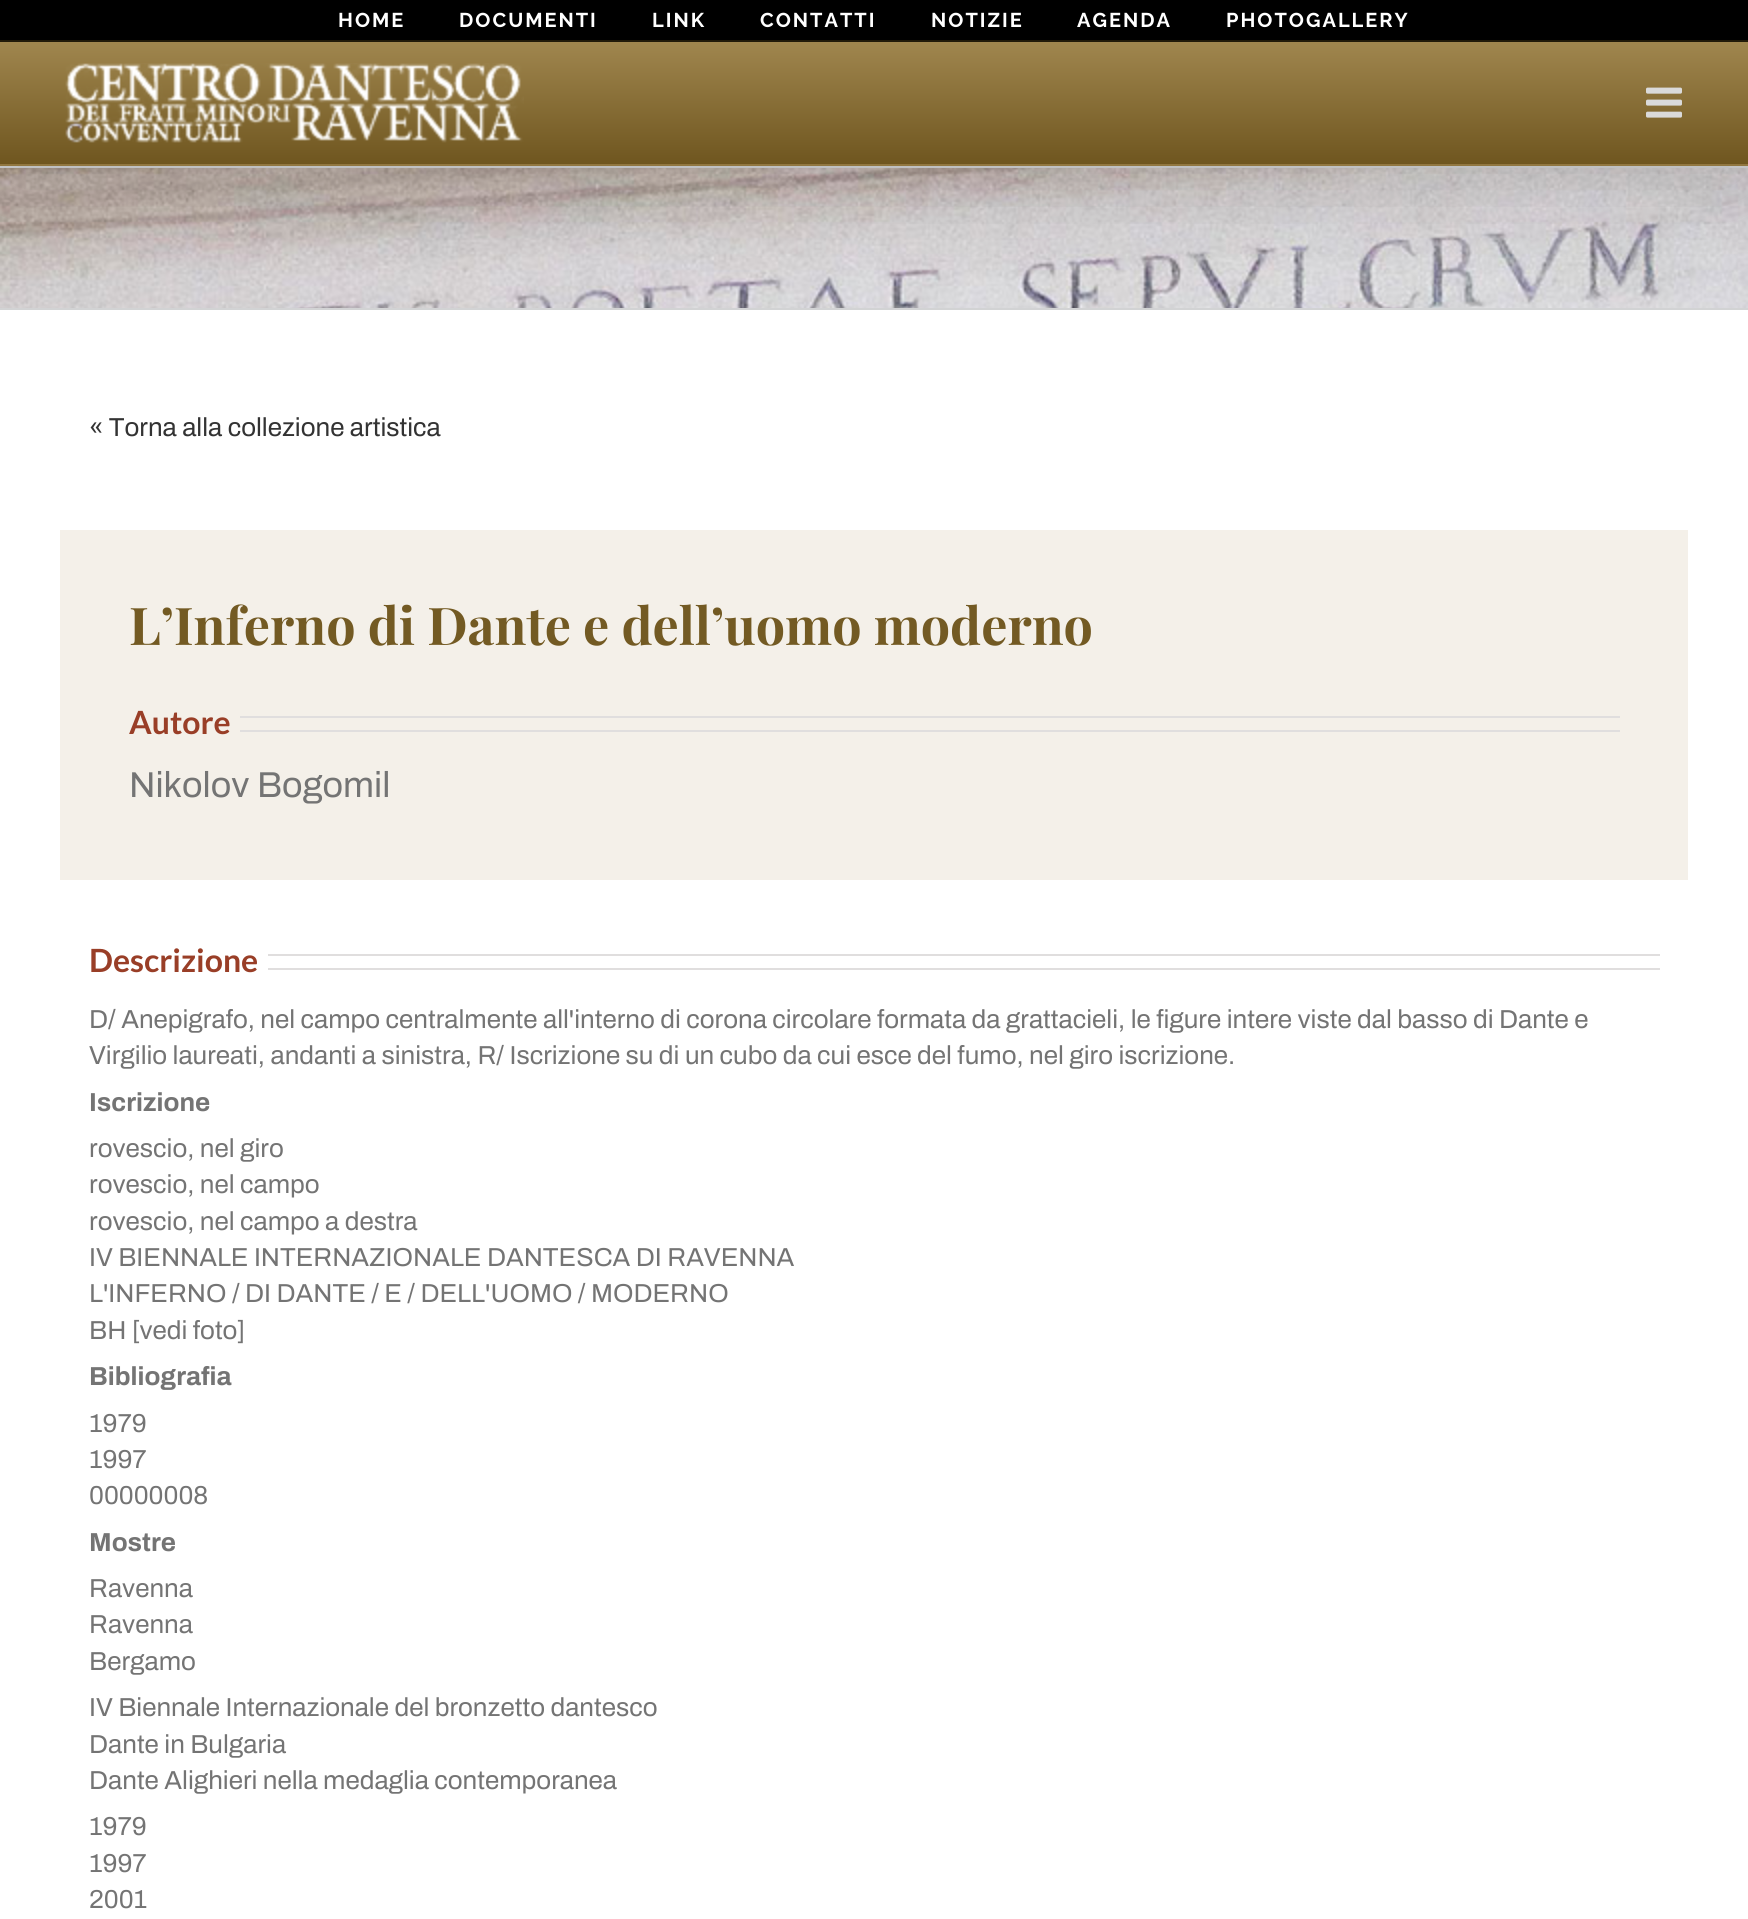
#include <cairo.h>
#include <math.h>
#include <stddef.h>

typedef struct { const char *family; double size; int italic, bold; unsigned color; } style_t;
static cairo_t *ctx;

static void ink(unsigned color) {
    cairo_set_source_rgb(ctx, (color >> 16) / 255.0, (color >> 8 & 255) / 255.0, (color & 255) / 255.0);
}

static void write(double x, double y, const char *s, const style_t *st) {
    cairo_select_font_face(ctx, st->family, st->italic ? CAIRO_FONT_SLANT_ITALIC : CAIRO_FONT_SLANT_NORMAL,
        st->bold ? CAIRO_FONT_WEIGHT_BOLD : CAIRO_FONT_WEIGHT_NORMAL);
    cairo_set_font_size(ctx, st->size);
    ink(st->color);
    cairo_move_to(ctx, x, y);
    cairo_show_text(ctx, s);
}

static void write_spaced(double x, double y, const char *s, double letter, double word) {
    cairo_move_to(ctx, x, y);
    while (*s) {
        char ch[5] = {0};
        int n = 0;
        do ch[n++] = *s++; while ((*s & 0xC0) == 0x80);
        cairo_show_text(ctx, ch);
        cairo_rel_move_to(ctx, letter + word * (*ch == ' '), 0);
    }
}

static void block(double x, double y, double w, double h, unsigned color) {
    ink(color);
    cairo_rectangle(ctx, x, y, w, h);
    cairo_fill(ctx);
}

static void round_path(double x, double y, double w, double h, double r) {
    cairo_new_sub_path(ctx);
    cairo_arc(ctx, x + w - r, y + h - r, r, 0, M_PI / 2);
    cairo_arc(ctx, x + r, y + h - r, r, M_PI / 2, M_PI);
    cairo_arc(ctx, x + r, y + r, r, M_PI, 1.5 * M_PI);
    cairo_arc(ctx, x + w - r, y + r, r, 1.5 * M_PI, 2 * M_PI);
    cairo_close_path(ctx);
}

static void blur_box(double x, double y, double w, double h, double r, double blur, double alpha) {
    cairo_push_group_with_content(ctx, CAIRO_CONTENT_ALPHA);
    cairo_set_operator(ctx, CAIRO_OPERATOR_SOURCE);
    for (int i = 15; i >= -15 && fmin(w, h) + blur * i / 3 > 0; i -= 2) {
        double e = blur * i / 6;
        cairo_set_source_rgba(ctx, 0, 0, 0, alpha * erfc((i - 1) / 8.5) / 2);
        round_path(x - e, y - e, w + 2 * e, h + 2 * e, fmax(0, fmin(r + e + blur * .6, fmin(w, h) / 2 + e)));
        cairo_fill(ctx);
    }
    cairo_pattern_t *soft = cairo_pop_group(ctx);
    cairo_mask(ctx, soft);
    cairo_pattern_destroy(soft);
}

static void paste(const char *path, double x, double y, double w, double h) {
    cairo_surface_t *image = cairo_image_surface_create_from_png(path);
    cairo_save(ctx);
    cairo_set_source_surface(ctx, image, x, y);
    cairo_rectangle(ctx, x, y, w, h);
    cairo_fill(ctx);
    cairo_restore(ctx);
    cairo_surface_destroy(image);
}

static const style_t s1 = {"Archivo", 26, 0, 0, 0x333333};
static const style_t s2 = {"Playfair Display", 52, 0, 1, 0x735a23};
static const style_t s3 = {"Lato", 32, 0, 1, 0x993e27};
static const style_t s4 = {"Archivo", 36, 0, 0, 0x747474};
static const style_t s5 = {"Archivo", 26, 0, 0, 0x747474};
static const style_t s6 = {"Archivo", 26, 0, 1, 0x747474};

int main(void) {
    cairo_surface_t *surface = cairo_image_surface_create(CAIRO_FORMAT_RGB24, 1748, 1919);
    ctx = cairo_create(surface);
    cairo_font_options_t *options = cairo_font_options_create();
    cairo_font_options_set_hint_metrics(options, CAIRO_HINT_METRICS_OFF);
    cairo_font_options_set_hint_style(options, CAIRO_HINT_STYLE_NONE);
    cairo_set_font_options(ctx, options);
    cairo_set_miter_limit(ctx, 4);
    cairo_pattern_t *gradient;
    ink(0xffffff);
    cairo_paint(ctx);
    paste("pic3.png", 0, 168, 1748, 140);
    block(0, 166, 1748, 2, 0xd2d3d4);
    block(0, 308, 1748, 2, 0xd2d3d4);
    ink(0x000000);
    blur_box(4, 24, 1740, 158, 0, 50, 0.14);
    block(0, 0, 1748, 40, 0x000000);
    block(0, 40, 1748, 2, 0x211a09);
    cairo_select_font_face(ctx, "Raleway Thin", CAIRO_FONT_SLANT_NORMAL, CAIRO_FONT_WEIGHT_NORMAL);
    cairo_set_font_size(ctx, 20);
    ink(0xffffff);
    write_spaced(338, 27, "HOME", 2, 0);
    write_spaced(459, 27, "DOCUMENTI", 2, 0);
    write_spaced(652, 27, "LINK", 2, 0);
    write_spaced(760, 27, "CONTATTI", 2, 0);
    write_spaced(931, 27, "NOTIZIE", 2, 0);
    write_spaced(1077, 27, "AGENDA", 2, 0);
    write_spaced(1226, 27, "PHOTOGALLERY", 2, 0);
    gradient = cairo_pattern_create_linear(874, 42, 874, 164);
    cairo_pattern_add_color_stop_rgba(gradient, 0, 0.627, 0.525, 0.306, 1);
    cairo_pattern_add_color_stop_rgba(gradient, 1, 0.435, 0.337, 0.122, 1);
    cairo_set_source(ctx, gradient);
    cairo_pattern_destroy(gradient);
    cairo_rectangle(ctx, 0, 42, 1748, 122);
    cairo_fill(ctx);
    block(0, 164, 1748, 2, 0x917740);
    paste("pic1.png", 65, 63, 459, 80);
    paste("pic2.png", 1646, 87, 36, 31);
    write(89, 436, "« Torna alla collezione artistica", &s1);
    block(60, 530, 1628, 350, 0xf4f0e9);
    write(129, 645, "L’Inferno di Dante e dell’uomo moderno", &s2);
    write(129, 734, "Autore", &s3);
    block(240, 716, 1380, 2, 0xe0dede);
    block(240, 730, 1380, 2, 0xe0dede);
    write(129, 797, "Nikolov Bogomil", &s4);
    write(89, 972, "Descrizione", &s3);
    block(268, 954, 1392, 2, 0xe0dede);
    block(268, 968, 1392, 2, 0xe0dede);
    write(89, 1028, "D/ Anepigrafo, nel campo centralmente all'interno di corona circolare formata da grattacieli, le figure intere viste dal basso di Dante e", &s5);
    write(89, 1064, "Virgilio laureati, andanti a sinistra, R/ Iscrizione su di un cubo da cui esce del fumo, nel giro iscrizione.", &s5);
    write(89, 1111, "Iscrizione", &s6);
    write(89, 1157, "rovescio, nel giro", &s5);
    write(89, 1193, "rovescio, nel campo", &s5);
    write(89, 1230, "rovescio, nel campo a destra", &s5);
    write(89, 1266, "IV BIENNALE INTERNAZIONALE DANTESCA DI RAVENNA", &s5);
    write(89, 1302, "L'INFERNO / DI DANTE / E / DELL'UOMO / MODERNO", &s5);
    write(89, 1339, "BH [vedi foto]", &s5);
    write(89, 1385, "Bibliografia", &s6);
    write(89, 1432, "1979", &s5);
    write(89, 1468, "1997", &s5);
    write(89, 1504, "00000008", &s5);
    write(89, 1551, "Mostre", &s6);
    write(89, 1597, "Ravenna", &s5);
    write(89, 1633, "Ravenna", &s5);
    write(89, 1670, "Bergamo", &s5);
    write(89, 1716, "IV Biennale Internazionale del bronzetto dantesco", &s5);
    write(89, 1753, "Dante in Bulgaria", &s5);
    write(89, 1789, "Dante Alighieri nella medaglia contemporanea", &s5);
    write(89, 1835, "1979", &s5);
    write(89, 1872, "1997", &s5);
    write(89, 1908, "2001", &s5);
    cairo_surface_write_to_png(surface, "screenshot.png");
    cairo_font_options_destroy(options);
    cairo_destroy(ctx);
    cairo_surface_destroy(surface);
    return 0;
}
